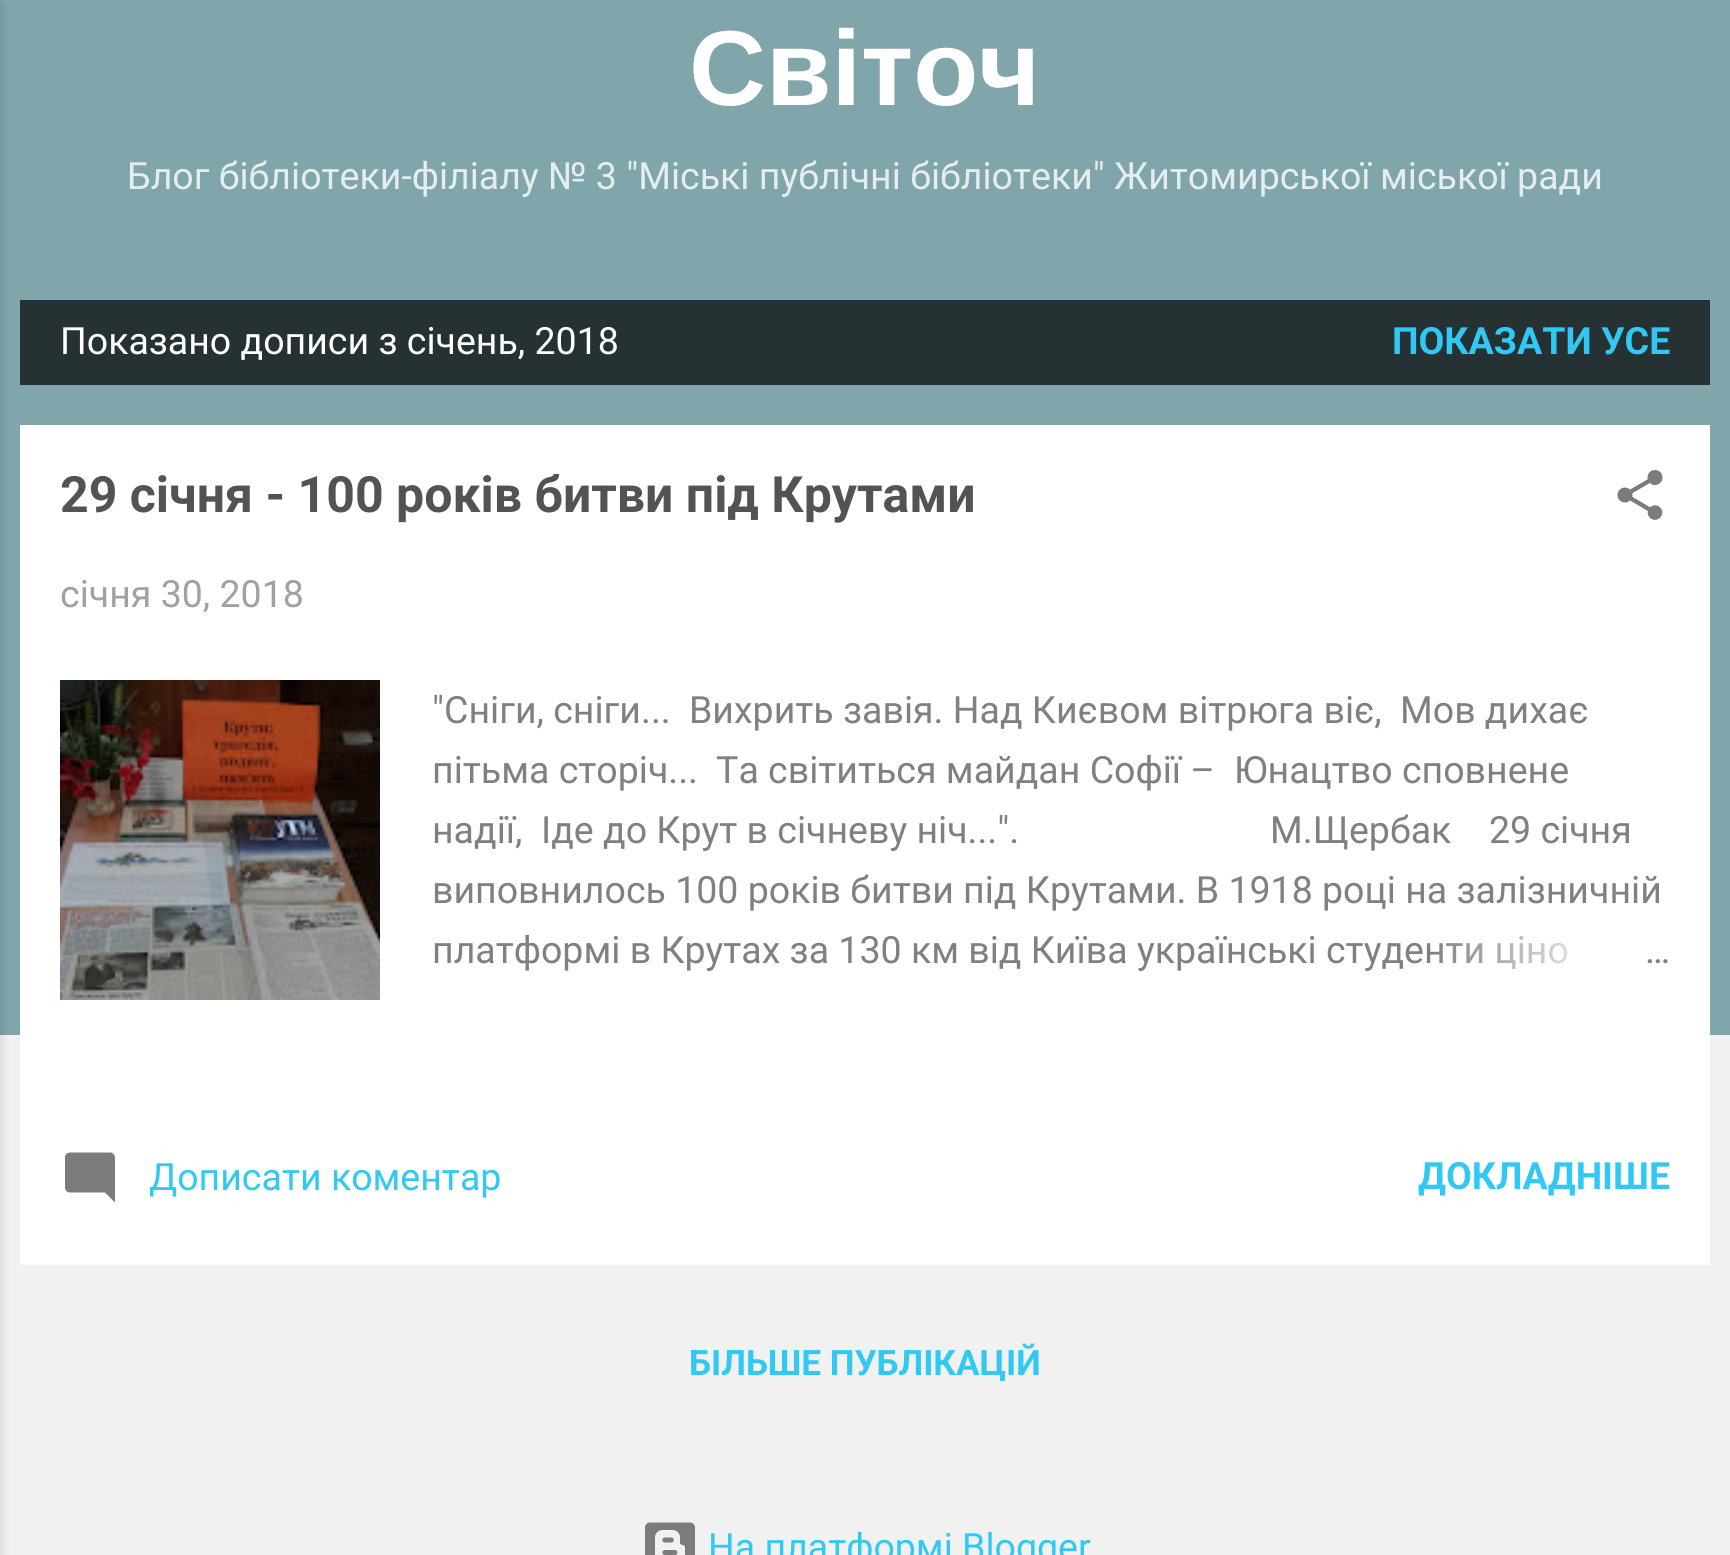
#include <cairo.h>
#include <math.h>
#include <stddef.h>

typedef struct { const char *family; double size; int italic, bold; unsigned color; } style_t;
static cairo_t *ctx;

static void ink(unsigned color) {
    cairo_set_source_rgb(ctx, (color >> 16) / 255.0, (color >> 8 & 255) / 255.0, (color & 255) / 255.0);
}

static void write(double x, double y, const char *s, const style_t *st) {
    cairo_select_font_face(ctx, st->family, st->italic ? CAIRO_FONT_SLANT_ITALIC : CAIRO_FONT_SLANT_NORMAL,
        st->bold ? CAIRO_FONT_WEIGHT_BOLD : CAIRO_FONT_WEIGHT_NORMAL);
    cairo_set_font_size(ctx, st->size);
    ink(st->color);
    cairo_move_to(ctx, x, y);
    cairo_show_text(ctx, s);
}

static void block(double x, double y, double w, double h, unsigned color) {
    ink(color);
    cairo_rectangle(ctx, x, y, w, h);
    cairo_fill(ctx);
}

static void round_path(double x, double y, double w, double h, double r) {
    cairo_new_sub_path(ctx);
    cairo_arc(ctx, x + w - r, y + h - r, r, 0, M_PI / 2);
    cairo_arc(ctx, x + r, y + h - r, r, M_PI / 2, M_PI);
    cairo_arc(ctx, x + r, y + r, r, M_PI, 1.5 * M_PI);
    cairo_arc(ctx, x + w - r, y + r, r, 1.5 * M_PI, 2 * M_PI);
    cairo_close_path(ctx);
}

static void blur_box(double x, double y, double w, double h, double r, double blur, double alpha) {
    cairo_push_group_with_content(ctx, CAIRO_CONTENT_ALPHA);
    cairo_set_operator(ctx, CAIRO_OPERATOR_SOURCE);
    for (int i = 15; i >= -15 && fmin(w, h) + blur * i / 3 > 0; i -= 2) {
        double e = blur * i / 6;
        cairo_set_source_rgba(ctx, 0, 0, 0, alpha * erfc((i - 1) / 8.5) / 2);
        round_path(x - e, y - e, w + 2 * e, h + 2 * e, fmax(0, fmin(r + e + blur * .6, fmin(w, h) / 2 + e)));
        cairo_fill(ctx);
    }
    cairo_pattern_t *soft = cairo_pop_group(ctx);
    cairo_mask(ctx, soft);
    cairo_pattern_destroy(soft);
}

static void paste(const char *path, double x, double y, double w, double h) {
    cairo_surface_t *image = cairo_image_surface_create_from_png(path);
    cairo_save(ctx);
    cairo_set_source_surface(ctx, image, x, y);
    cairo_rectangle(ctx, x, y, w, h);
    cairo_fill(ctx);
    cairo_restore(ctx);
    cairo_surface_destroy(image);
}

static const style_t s1 = {"Liberation Sans", 106.5, 0, 1, 0xffffff};
static const style_t s2 = {"Roboto", 37.5, 0, 0, 0xe6edee};
static const style_t s3 = {"Roboto", 37.5, 0, 0, 0xffffff};
static const style_t s4 = {"Roboto", 37.5, 0, 1, 0x31c9f3};
static const style_t s5 = {"Roboto", 50, 0, 1, 0x535353};
static const style_t s6 = {"Roboto", 37.5, 0, 0, 0xa1a1a1};
static const style_t s7 = {"Roboto", 37.5, 0, 0, 0x808080};
static const style_t s8 = {"Roboto", 37.5, 0, 0, 0x31c9f3};
static const style_t s9 = {"Roboto", 35, 0, 1, 0x31c9f3};

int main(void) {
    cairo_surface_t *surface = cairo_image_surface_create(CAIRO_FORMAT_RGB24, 1730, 1555);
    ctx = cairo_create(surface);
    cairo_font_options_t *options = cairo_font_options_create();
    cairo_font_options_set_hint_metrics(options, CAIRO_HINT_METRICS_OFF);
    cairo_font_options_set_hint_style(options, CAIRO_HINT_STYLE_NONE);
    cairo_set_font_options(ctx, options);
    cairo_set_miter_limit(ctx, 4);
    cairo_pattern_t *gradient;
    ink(0xf1f1f1);
    cairo_paint(ctx);
    block(0, 0, 1730, 1035, 0x80a5ab);
    ink(0x000000);
    blur_box(-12, 3, 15, 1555, 0, 4, 0.1);
    write(689, 105, "Світоч", &s1);
    write(127, 189, "Блог бібліотеки-філіалу № 3 \"Міські публічні бібліотеки\" Житомирської міської ради", &s2);
    block(20, 300, 1690, 85, 0x263133);
    write(60, 354, "Показано дописи з січень, 2018", &s3);
    write(1392, 354, "ПОКАЗАТИ УСЕ", &s4);
    block(20, 425, 1690, 840, 0xffffff);
    write(60, 512, "29 січня - 100 років битви під Крутами", &s5);
    paste("pic1.png", 1617, 470, 46, 50);
    write(60, 607, "січня 30, 2018", &s6);
    paste("pic2.png", 60, 680, 320, 320);
    write(432, 723, "\"Сніги, сніги...", &s7);
    write(689, 723, "Вихрить завія. Над Києвом вітрюга віє,", &s7);
    write(1400, 723, "Мов дихає", &s7);
    write(432, 783, "пітьма сторіч...", &s7);
    write(716, 783, "Та світиться майдан Софії –", &s7);
    write(1234, 783, "Юнацтво сповнене", &s7);
    write(432, 843, "надії,", &s7);
    write(541, 843, "Іде до Крут в січневу ніч...\".", &s7);
    write(1270, 843, "М.Щербак", &s7);
    write(1489, 843, "29 січня", &s7);
    write(432, 903, "виповнилось 100 років битви під Крутами. В 1918 році на залізничній", &s7);
    write(432, 963, "платформі в Крутах за 130 км від Київа українські студенти ціно", &s7);
    gradient = cairo_pattern_create_linear(1670, 950, 1430, 950);
    cairo_pattern_add_color_stop_rgba(gradient, 0, 1, 1, 1, 1);
    cairo_pattern_add_color_stop_rgba(gradient, 0.2, 1, 1, 1, 1);
    cairo_pattern_add_color_stop_rgba(gradient, 1, 1, 1, 1, 0);
    cairo_set_source(ctx, gradient);
    cairo_pattern_destroy(gradient);
    cairo_rectangle(ctx, 1434, 936, 134, 33);
    cairo_fill(ctx);
    write(1645, 963, "…", &s7);
    paste("pic3.png", 65, 1152, 50, 51);
    write(149, 1190, "Дописати коментар", &s8);
    write(1418, 1189, "ДОКЛАДНІШЕ", &s4);
    write(689, 1375, "БІЛЬШЕ ПУБЛІКАЦІЙ", &s9);
    paste("pic4.png", 645, 1522, 50, 33);
    write(708, 1560, "На платформі Blogger", &s8);
    cairo_surface_write_to_png(surface, "screenshot.png");
    cairo_font_options_destroy(options);
    cairo_destroy(ctx);
    cairo_surface_destroy(surface);
    return 0;
}
